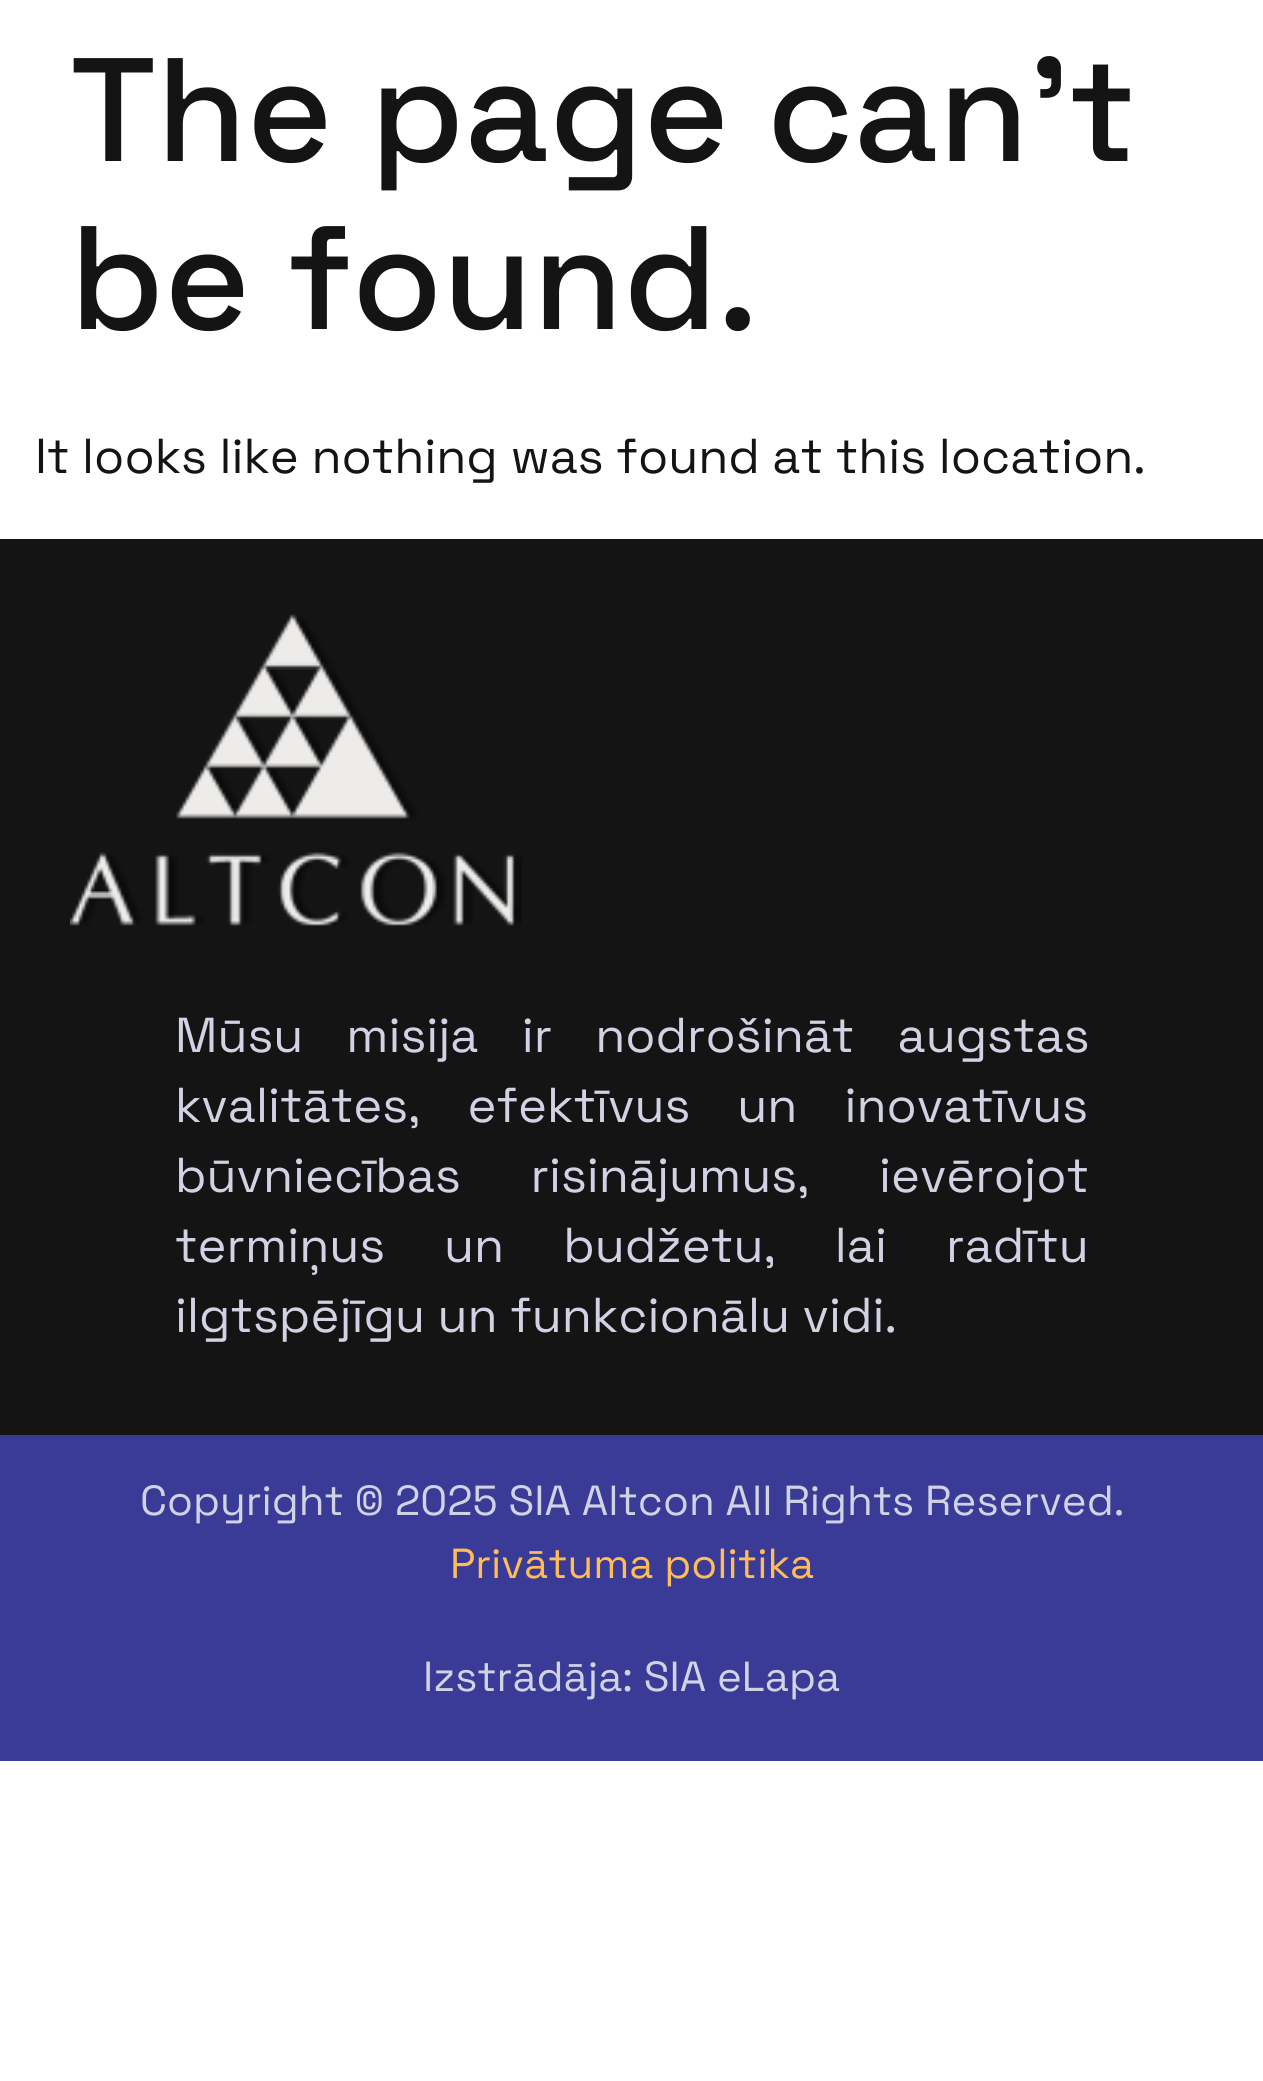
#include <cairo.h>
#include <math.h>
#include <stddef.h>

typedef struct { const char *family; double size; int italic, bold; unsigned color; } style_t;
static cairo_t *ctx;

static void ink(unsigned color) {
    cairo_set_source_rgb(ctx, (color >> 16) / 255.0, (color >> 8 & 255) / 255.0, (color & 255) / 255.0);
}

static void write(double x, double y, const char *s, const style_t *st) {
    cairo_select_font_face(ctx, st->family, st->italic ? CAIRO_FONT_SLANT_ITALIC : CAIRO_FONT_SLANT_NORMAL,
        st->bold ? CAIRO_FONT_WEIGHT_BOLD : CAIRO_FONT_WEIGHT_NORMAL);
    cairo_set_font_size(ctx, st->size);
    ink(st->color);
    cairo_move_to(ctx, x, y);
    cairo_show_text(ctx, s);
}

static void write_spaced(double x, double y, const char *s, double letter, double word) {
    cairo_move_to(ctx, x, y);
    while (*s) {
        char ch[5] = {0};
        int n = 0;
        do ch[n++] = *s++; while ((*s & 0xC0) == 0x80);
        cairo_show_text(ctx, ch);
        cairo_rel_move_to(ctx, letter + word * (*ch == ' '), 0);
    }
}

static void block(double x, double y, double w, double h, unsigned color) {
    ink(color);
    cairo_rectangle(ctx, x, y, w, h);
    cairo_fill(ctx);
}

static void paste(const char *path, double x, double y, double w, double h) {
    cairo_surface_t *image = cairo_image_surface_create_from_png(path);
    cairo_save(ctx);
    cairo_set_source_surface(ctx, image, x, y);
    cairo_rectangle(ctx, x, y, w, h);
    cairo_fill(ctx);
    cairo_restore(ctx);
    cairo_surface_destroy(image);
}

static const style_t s1 = {"Space Grotesk Medium", 147, 0, 0, 0x141414};
static const style_t s2 = {"Space Grotesk", 49, 0, 0, 0x141414};
static const style_t s3 = {"Space Grotesk", 49, 0, 0, 0xd1d2e3};
static const style_t s4 = {"Space Grotesk", 42, 0, 0, 0xd1d2e3};
static const style_t s5 = {"Space Grotesk", 42, 0, 0, 0xffbc57};

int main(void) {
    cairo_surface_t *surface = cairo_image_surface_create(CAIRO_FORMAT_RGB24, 1263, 2081);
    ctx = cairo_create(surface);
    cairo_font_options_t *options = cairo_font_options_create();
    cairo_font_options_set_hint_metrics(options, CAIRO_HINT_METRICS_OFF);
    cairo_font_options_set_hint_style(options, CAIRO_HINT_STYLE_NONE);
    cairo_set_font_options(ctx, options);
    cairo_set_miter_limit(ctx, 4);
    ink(0xffffff);
    cairo_paint(ctx);
    write(70, 161, "The page can’t", &s1);
    write(70, 329, "be found.", &s1);
    write(35, 473, "It looks like nothing was found at this location.", &s2);
    block(0, 539, 1263, 896, 0x141414);
    paste("pic1.png", 70, 614, 452, 312);
    ink(0xd1d2e3);
    write_spaced(175, 1052, "Mūsu misija ir nodrošināt augstas", 0, 30.5);
    write_spaced(175, 1122, "kvalitātes, efektīvus un inovatīvus", 0, 34.5);
    write_spaced(175, 1192, "būvniecības risinājumus, ievērojot", 0, 57);
    write_spaced(175, 1262, "termiņus un budžetu, lai radītu", 0, 46.5);
    write(175, 1332, "ilgtspējīgu un funkcionālu vidi.", &s3);
    block(0, 1435, 1263, 326, 0x393b97);
    write(140, 1515, "Copyright © 2025 SIA Altcon All Rights Reserved.", &s4);
    write(450, 1578, "Privātuma politika", &s5);
    write(423, 1691, "Izstrādāja: SIA eLapa", &s4);
    cairo_surface_write_to_png(surface, "screenshot.png");
    cairo_font_options_destroy(options);
    cairo_destroy(ctx);
    cairo_surface_destroy(surface);
    return 0;
}
